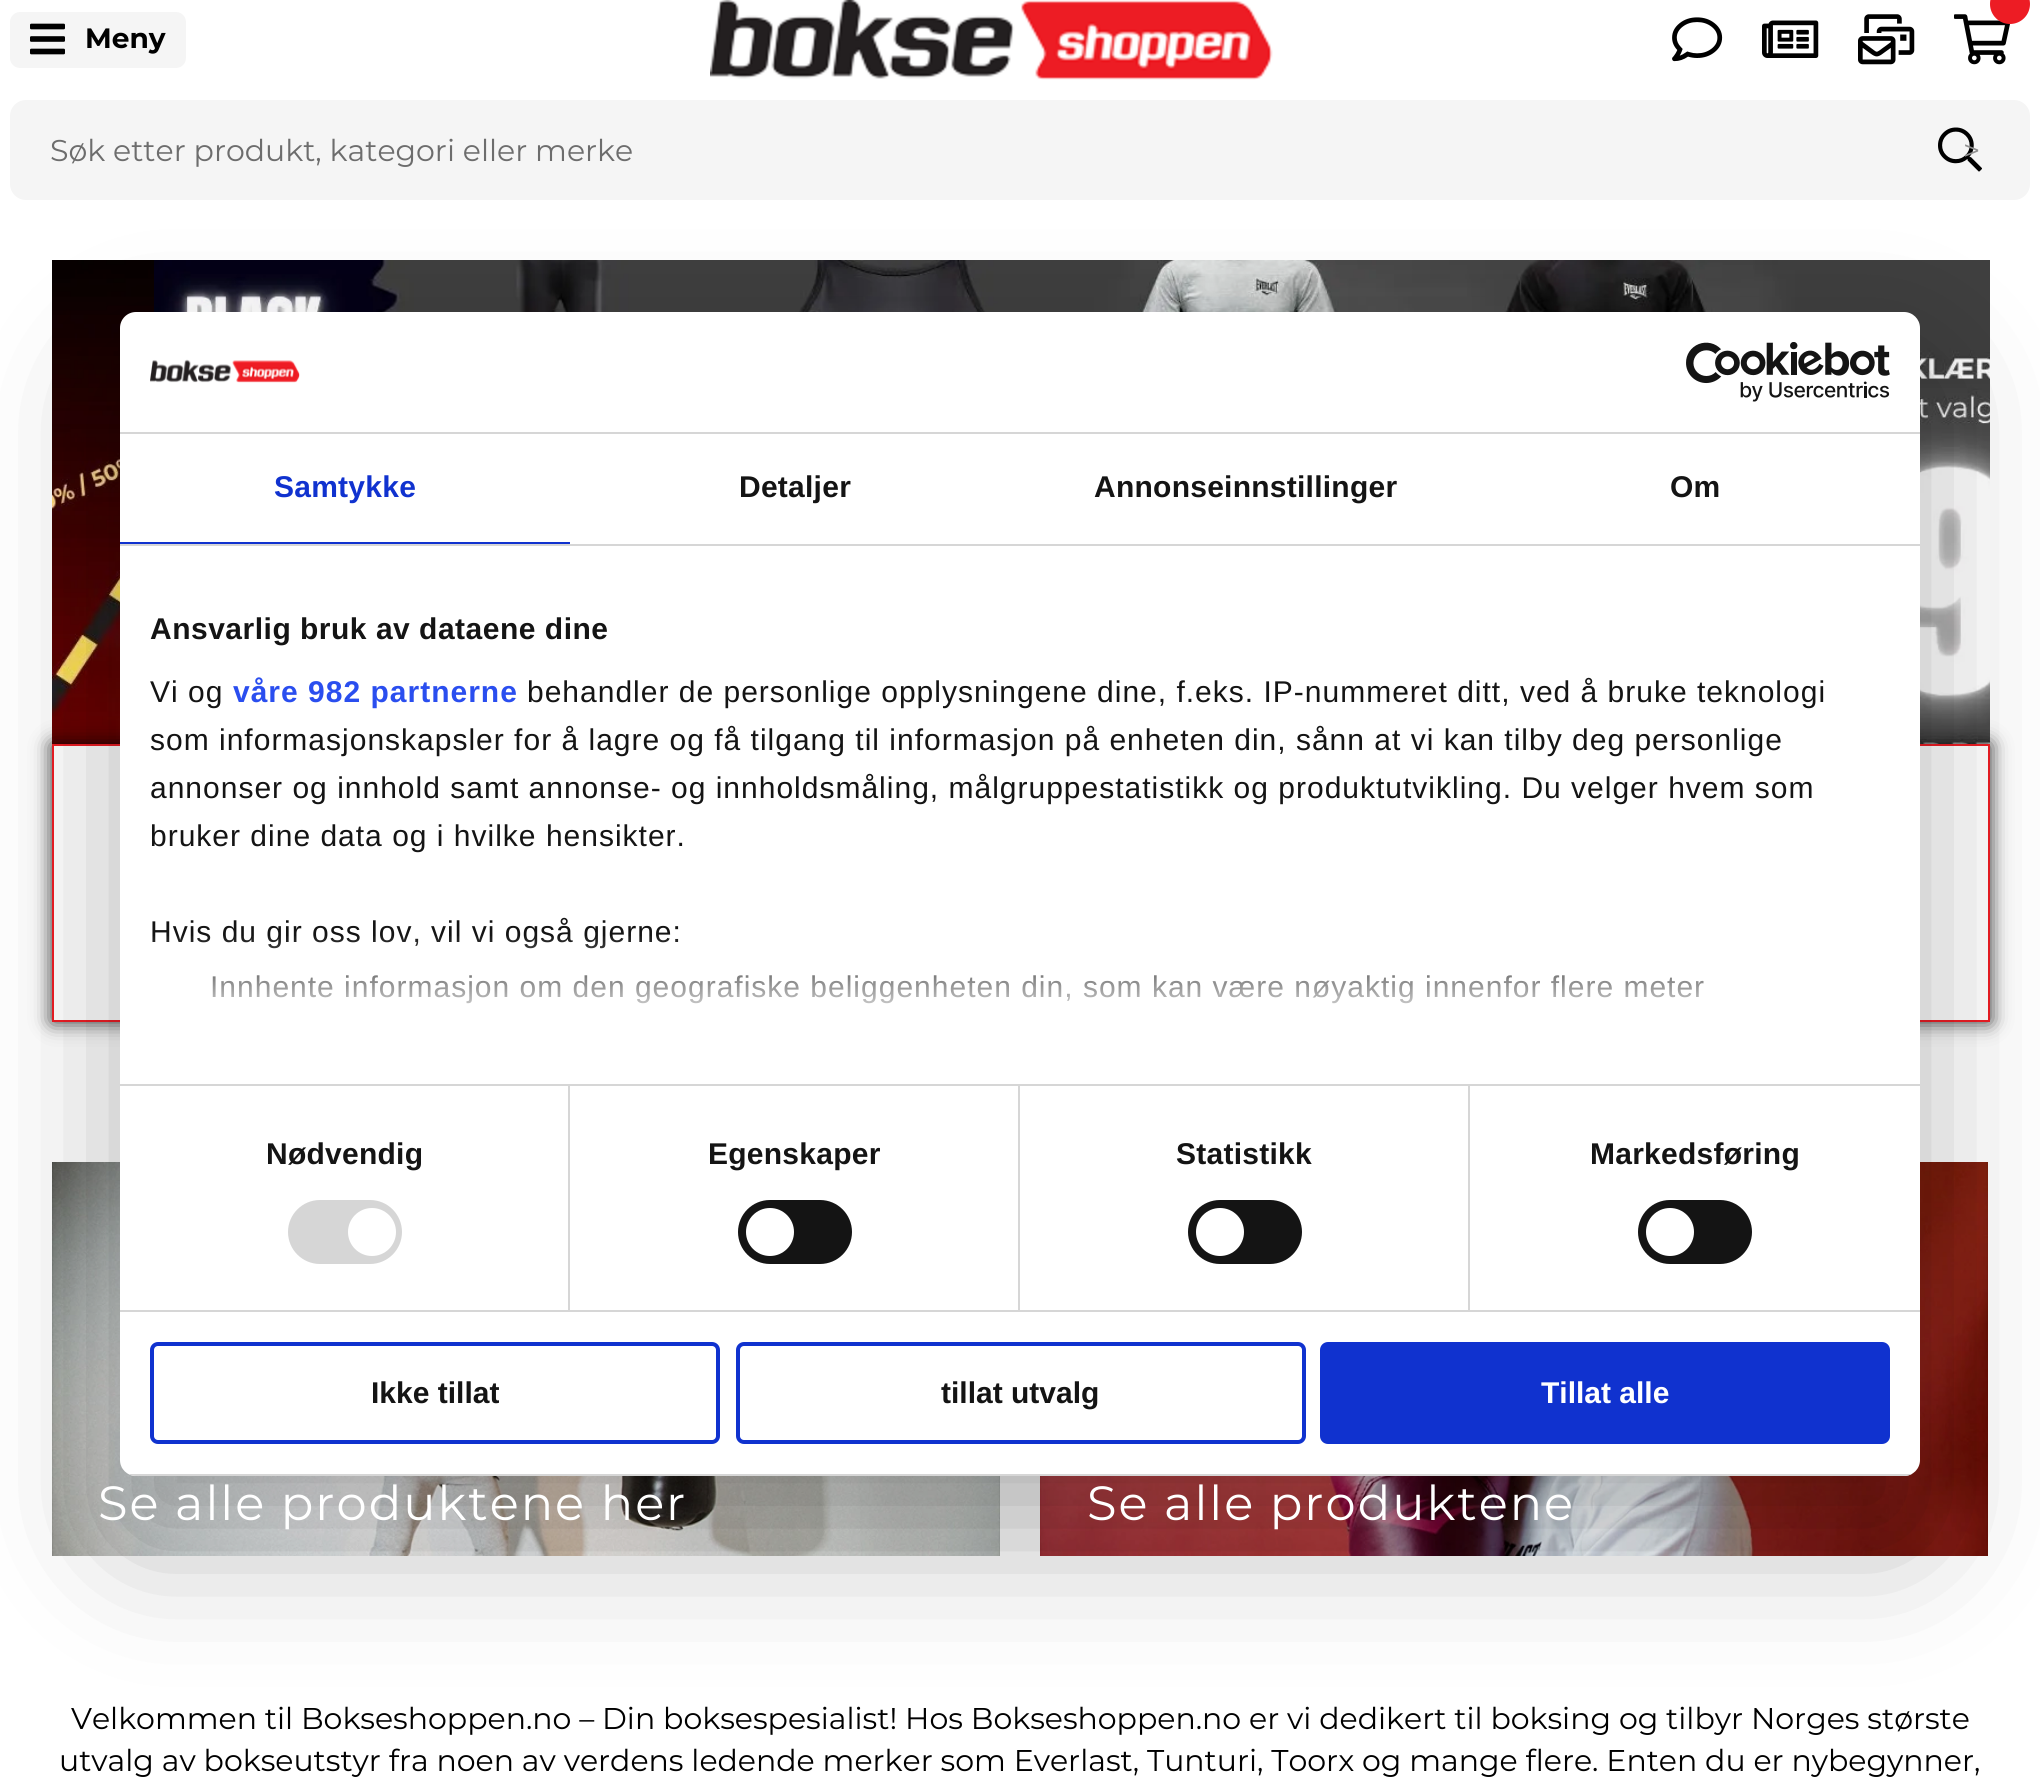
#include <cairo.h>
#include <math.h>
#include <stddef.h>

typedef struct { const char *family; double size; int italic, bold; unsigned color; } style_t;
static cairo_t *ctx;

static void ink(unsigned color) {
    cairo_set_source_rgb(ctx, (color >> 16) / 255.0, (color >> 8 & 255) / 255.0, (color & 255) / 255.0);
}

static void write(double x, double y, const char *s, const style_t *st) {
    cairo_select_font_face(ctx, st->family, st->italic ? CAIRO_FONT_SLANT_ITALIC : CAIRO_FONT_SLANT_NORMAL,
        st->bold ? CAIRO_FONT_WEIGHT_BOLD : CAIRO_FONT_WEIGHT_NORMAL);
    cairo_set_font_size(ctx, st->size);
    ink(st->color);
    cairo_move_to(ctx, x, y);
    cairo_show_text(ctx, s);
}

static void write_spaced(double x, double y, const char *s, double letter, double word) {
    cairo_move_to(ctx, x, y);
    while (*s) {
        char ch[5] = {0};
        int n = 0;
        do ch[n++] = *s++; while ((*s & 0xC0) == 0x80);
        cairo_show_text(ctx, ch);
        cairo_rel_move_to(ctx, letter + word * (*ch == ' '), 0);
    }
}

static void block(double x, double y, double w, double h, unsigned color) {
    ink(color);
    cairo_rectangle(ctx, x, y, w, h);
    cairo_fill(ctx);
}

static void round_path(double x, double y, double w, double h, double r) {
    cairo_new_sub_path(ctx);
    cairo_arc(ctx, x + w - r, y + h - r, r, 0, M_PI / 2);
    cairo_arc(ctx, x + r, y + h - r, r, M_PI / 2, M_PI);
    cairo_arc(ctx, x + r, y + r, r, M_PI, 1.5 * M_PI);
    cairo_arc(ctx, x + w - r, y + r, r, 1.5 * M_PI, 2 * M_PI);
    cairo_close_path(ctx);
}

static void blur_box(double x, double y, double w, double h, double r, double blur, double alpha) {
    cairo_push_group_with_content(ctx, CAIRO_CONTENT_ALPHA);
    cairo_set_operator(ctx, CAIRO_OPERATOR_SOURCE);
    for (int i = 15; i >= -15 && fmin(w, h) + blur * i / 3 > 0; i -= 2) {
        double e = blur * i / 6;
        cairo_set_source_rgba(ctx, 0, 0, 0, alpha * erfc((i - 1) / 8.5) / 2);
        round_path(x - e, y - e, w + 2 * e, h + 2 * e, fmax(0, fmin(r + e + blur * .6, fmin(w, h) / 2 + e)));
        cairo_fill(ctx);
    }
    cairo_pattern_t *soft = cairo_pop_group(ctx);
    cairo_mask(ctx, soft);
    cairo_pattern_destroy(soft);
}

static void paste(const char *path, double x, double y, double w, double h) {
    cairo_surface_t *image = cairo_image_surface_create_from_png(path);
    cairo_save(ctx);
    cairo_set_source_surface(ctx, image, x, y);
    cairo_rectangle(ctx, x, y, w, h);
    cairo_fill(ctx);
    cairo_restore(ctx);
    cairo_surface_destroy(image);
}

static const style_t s1 = {"Montserrat", 28, 0, 1, 0x000000};
static const style_t s2 = {"Montserrat", 30, 0, 0, 0x6d6d6d};
static const style_t s3 = {"Montserrat", 30, 0, 0, 0x8f8f8f};
static const style_t s4 = {"Liberation Sans", 30, 0, 1, 0x141414};
static const style_t s5 = {"Liberation Sans", 30, 0, 1, 0xffffff};
static const style_t s6 = {"Montserrat", 30, 0, 0, 0x000000};

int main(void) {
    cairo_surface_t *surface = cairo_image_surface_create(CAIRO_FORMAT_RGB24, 2040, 1785);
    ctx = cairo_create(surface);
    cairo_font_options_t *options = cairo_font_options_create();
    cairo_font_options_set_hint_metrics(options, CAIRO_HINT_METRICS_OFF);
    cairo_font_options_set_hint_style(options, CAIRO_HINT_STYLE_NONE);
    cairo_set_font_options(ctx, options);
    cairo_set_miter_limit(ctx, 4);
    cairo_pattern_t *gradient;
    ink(0xffffff);
    cairo_paint(ctx);
    ink(0xf5f5f5);
    round_path(10, 12, 176, 56, 10);
    cairo_fill(ctx);
    paste("pic1.png", 30, 23, 35, 32);
    write(85, 48, "Meny", &s1);
    paste("pic2.png", 710, 0, 563, 80);
    paste("pic3.png", 1672, 17, 51, 45);
    paste("pic4.png", 1762, 20, 57, 38);
    paste("pic5.png", 1858, 14, 57, 51);
    paste("pic6.png", 1954, 14, 57, 51);
    ink(0xed1c24);
    cairo_arc(ctx, 2010, 4, 20, 0, 2 * M_PI);
    cairo_fill(ctx);
    ink(0xf5f5f5);
    round_path(10, 100, 2020, 100, 16);
    cairo_fill(ctx);
    write(50, 161, "Søk etter produkt, kategori eller merke", &s2);
    paste("pic7.png", 1938, 127, 44, 45);
    write(1963, 161, ">", &s3);
    paste("pic10.png", 52, 260, 102, 484);
    paste("pic11.png", 154, 260, 1836, 484);
    ink(0x000000);
    blur_box(52, 744, 438, 278, 0, 10, 0.8);
    block(54, 746, 66, 274, 0xffffff);
    cairo_rectangle(ctx, 53, 745, 436, 276);
    ink(0xed1c24);
    cairo_stroke(ctx);
    ink(0x000000);
    blur_box(1550, 744, 440, 278, 0, 10, 0.8);
    block(1920, 746, 68, 274, 0xffffff);
    cairo_rectangle(ctx, 1551, 745, 438, 276);
    ink(0xed1c24);
    cairo_stroke(ctx);
    paste("pic12.png", 52, 1162, 948, 394);
    paste("pic13.png", 1040, 1162, 948, 394);
    ink(0x000000);
    blur_box(120, 376, 1800, 1164, 16, 68, 0.3);
    ink(0xffffff);
    round_path(120, 312, 1800, 1164, 16);
    cairo_fill(ctx);
    block(120, 432, 1800, 2, 0xd6d6d6);
    paste("pic8.png", 150, 359, 150, 24);
    paste("pic9.png", 1686, 342, 204, 60);
    block(120, 544, 1800, 2, 0xd6d6d6);
    block(120, 542, 450, 2, 0x1032cf);
    cairo_select_font_face(ctx, "Liberation Sans", CAIRO_FONT_SLANT_NORMAL, CAIRO_FONT_WEIGHT_BOLD);
    write_spaced(274, 497, "Samtykke", 0.25, 0);
    ink(0x141414);
    write_spaced(739, 497, "Detaljer", 0.25, 0);
    write_spaced(1094, 497, "Annonseinnstillinger", 0.25, 0);
    write_spaced(1670, 497, "Om", 0.25, 0);
    block(120, 1084, 1800, 2, 0xd6d6d6);
    ink(0x141414);
    write_spaced(150, 639, "Ansvarlig bruk av dataene dine", 0.5, 0);
    cairo_select_font_face(ctx, "Liberation Sans", CAIRO_FONT_SLANT_NORMAL, CAIRO_FONT_WEIGHT_NORMAL);
    write_spaced(150, 702, "Vi og", 1, 0);
    cairo_select_font_face(ctx, "Liberation Sans", CAIRO_FONT_SLANT_NORMAL, CAIRO_FONT_WEIGHT_BOLD);
    ink(0x2a4eef);
    write_spaced(233, 702, "våre 982 partnerne", 1, 0);
    cairo_select_font_face(ctx, "Liberation Sans", CAIRO_FONT_SLANT_NORMAL, CAIRO_FONT_WEIGHT_NORMAL);
    ink(0x141414);
    write_spaced(527, 702, "behandler de personlige opplysningene dine, f.eks. IP-nummeret ditt, ved å bruke teknologi", 1, 0);
    write_spaced(150, 750, "som informasjonskapsler for å lagre og få tilgang til informasjon på enheten din, sånn at vi kan tilby deg personlige", 1, 0);
    write_spaced(150, 798, "annonser og innhold samt annonse- og innholdsmåling, målgruppestatistikk og produktutvikling. Du velger hvem som", 1, 0);
    write_spaced(150, 846, "bruker dine data og i hvilke hensikter.", 1, 0);
    write_spaced(150, 942, "Hvis du gir oss lov, vil vi også gjerne:", 1, 0);
    write_spaced(210, 997, "Innhente informasjon om den geografiske beliggenheten din, som kan være nøyaktig innenfor flere meter", 1, 0);
    gradient = cairo_pattern_create_linear(1007, 1084, 1007, 934);
    cairo_pattern_add_color_stop_rgba(gradient, 0, 1, 1, 1, 1);
    cairo_pattern_add_color_stop_rgba(gradient, 0.5, 1, 1, 1, 0.8);
    cairo_pattern_add_color_stop_rgba(gradient, 1, 1, 1, 1, 0);
    cairo_set_source(ctx, gradient);
    cairo_pattern_destroy(gradient);
    cairo_rectangle(ctx, 152, 936, 1552, 68);
    cairo_fill(ctx);
    block(120, 1310, 1800, 2, 0xd6d6d6);
    block(568, 1086, 2, 224, 0xd6d6d6);
    cairo_select_font_face(ctx, "Liberation Sans", CAIRO_FONT_SLANT_NORMAL, CAIRO_FONT_WEIGHT_BOLD);
    ink(0x141414);
    write_spaced(266, 1164, "Nødvendig", 0.25, 0);
    ink(0xd6d6d6);
    round_path(288, 1200, 114, 64, 32);
    cairo_fill(ctx);
    ink(0xffffff);
    cairo_arc(ctx, 372, 1232, 24, 0, 2 * M_PI);
    cairo_fill(ctx);
    block(1018, 1086, 2, 224, 0xd6d6d6);
    ink(0x141414);
    write_spaced(708, 1164, "Egenskaper", 0.25, 0);
    round_path(738, 1200, 114, 64, 32);
    cairo_fill(ctx);
    ink(0xffffff);
    cairo_arc(ctx, 770, 1232, 24, 0, 2 * M_PI);
    cairo_fill(ctx);
    block(1468, 1086, 2, 224, 0xd6d6d6);
    ink(0x141414);
    write_spaced(1176, 1164, "Statistikk", 0.25, 0);
    round_path(1188, 1200, 114, 64, 32);
    cairo_fill(ctx);
    ink(0xffffff);
    cairo_arc(ctx, 1220, 1232, 24, 0, 2 * M_PI);
    cairo_fill(ctx);
    ink(0x141414);
    write_spaced(1590, 1164, "Markedsføring", 0.25, 0);
    round_path(1638, 1200, 114, 64, 32);
    cairo_fill(ctx);
    ink(0xffffff);
    cairo_arc(ctx, 1670, 1232, 24, 0, 2 * M_PI);
    cairo_fill(ctx);
    cairo_save(ctx);
    round_path(120, 312, 1800, 1164, 16);
    cairo_clip(ctx);
    block(120, 1474, 1800, 2, 0xd6d6d6);
    cairo_restore(ctx);
    round_path(152, 1344, 566, 98, 6);
    ink(0x1032cf);
    cairo_set_line_width(ctx, 4);
    cairo_stroke(ctx);
    write(371, 1403, "Ikke tillat", &s4);
    round_path(738, 1344, 566, 98, 6);
    ink(0x1032cf);
    cairo_stroke(ctx);
    write(941, 1403, "tillat utvalg", &s4);
    ink(0x1032cf);
    round_path(1322, 1344, 566, 98, 6);
    cairo_fill_preserve(ctx);
    cairo_stroke(ctx);
    write(1541, 1403, "Tillat alle", &s5);
    cairo_select_font_face(ctx, "Montserrat", CAIRO_FONT_SLANT_NORMAL, CAIRO_FONT_WEIGHT_NORMAL);
    cairo_set_font_size(ctx, 48);
    write_spaced(98, 1520, "Se alle produktene her", 2, 0);
    write_spaced(1087, 1520, "Se alle produktene", 2, 0);
    write(71, 1729, "Velkommen til Bokseshoppen.no – Din boksespesialist! Hos Bokseshoppen.no er vi dedikert til boksing og tilbyr Norges største", &s6);
    write(59, 1771, "utvalg av bokseutstyr fra noen av verdens ledende merker som Everlast, Tunturi, Toorx og mange flere. Enten du er nybegynner,", &s6);
    cairo_surface_write_to_png(surface, "screenshot.png");
    cairo_font_options_destroy(options);
    cairo_destroy(ctx);
    cairo_surface_destroy(surface);
    return 0;
}
